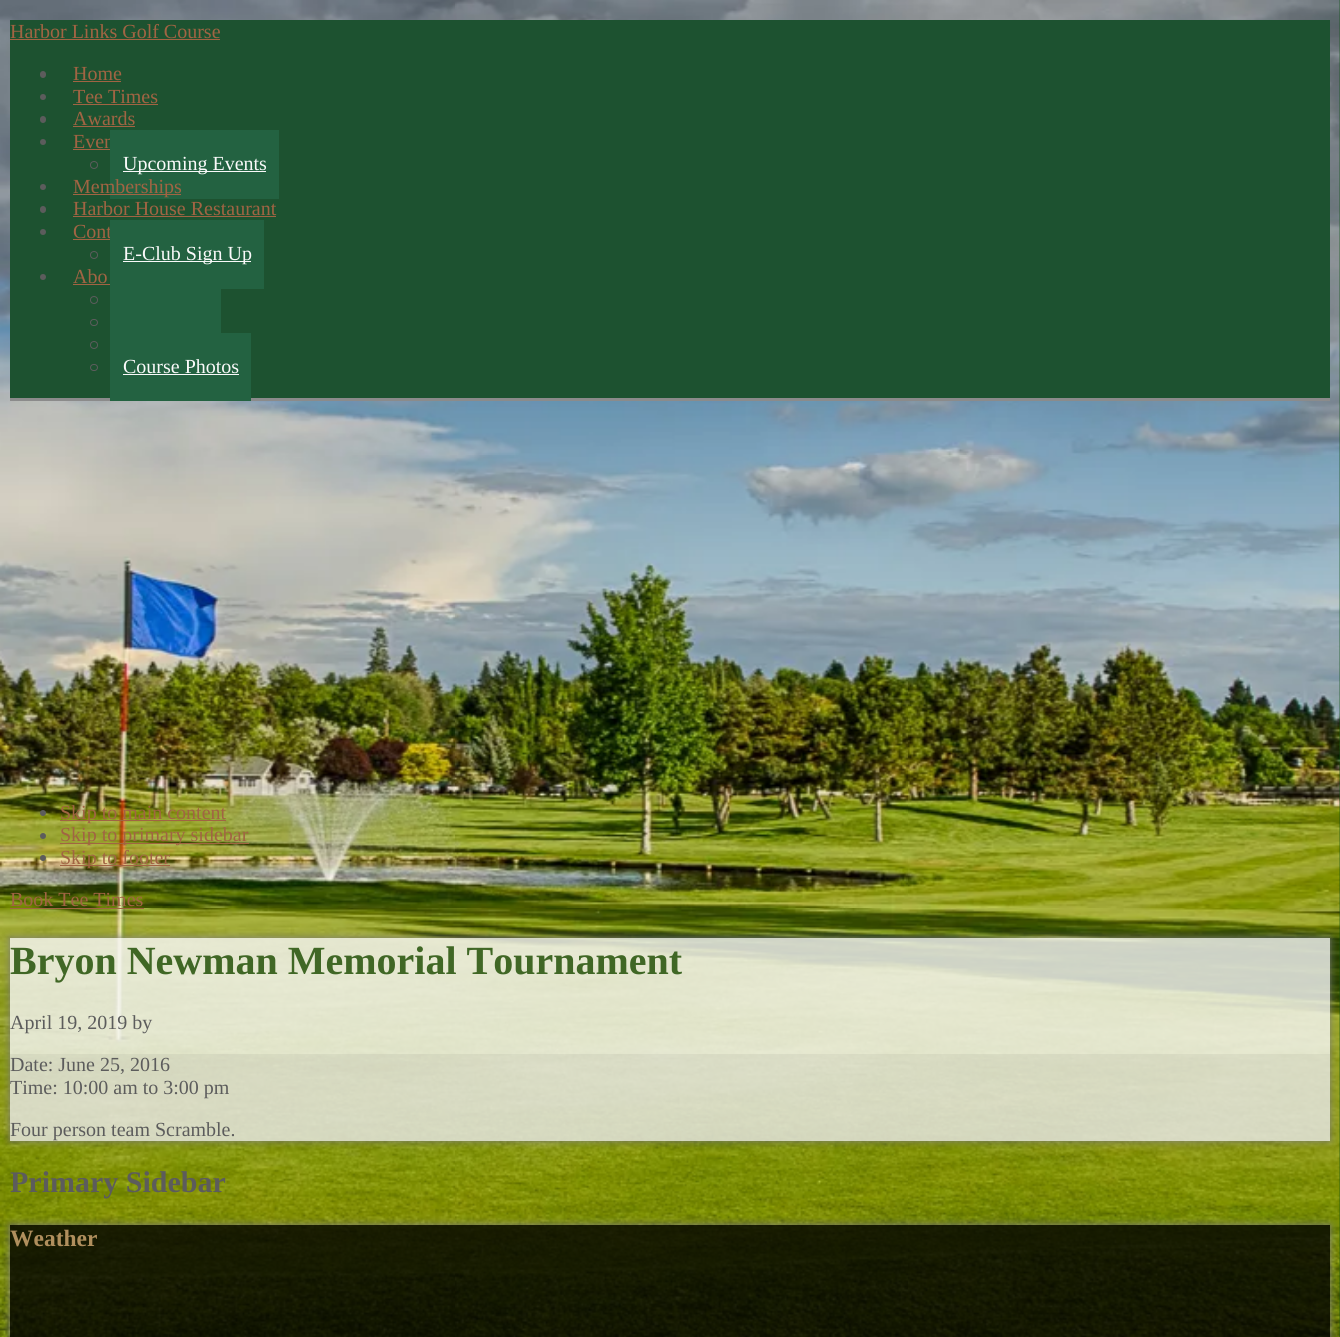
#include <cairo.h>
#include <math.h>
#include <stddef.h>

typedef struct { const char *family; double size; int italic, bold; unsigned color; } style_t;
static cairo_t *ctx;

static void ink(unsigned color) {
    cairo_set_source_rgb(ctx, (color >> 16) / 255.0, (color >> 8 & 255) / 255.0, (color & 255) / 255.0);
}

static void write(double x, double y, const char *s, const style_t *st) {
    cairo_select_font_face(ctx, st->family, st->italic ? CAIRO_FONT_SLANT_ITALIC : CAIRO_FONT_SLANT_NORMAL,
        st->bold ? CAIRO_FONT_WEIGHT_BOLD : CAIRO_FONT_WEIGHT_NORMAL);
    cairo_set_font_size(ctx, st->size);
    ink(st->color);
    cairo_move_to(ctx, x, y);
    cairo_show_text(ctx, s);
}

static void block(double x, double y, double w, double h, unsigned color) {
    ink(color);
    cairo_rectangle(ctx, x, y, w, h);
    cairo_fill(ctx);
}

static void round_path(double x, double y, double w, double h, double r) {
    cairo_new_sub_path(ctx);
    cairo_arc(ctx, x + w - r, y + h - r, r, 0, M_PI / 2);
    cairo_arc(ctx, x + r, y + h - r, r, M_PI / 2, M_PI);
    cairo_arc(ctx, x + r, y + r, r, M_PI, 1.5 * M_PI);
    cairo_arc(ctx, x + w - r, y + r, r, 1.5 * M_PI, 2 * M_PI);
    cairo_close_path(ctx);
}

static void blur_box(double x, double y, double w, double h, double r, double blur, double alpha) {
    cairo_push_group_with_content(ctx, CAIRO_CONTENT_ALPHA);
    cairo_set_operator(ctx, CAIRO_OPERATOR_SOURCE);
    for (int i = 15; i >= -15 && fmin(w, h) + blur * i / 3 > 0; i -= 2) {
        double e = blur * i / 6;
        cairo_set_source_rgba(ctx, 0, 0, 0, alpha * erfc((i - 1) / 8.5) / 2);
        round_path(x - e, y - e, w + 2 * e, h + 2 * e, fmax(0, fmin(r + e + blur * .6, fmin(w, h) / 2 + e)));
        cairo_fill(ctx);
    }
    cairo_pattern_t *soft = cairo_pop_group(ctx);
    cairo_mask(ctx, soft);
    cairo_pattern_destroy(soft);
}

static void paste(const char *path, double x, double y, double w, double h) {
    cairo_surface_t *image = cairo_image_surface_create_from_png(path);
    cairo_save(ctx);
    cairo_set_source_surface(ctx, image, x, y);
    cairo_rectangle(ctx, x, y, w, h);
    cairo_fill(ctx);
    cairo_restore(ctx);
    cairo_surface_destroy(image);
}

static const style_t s1 = {"Liberation Serif", 20, 0, 0, 0xa16443};
static const style_t s2 = {"Liberation Serif", 20, 0, 0, 0xfafafa};
static const style_t s3 = {"Liberation Serif", 40, 0, 1, 0x406725};
static const style_t s4 = {"Liberation Serif", 20, 0, 0, 0x5c5c5c};
static const style_t s5 = {"Liberation Serif", 30, 0, 1, 0x5c5c5c};
static const style_t s6 = {"Liberation Serif", 23.5, 0, 1, 0xb08f5d};

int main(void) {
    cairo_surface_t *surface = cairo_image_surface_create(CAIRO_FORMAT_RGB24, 1340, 1337);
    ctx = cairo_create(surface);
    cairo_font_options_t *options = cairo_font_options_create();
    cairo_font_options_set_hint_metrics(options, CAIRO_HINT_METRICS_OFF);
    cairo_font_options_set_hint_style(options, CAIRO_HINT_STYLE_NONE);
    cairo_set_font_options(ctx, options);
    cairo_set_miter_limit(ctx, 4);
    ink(0x0d5413);
    cairo_paint(ctx);
    paste("pic1.png", 0, 0, 1340, 1337);
    block(10, 20, 1320, 378, 0x1d5230);
    block(10, 398, 1320, 3, 0x8b8b8b);
    write(10, 38, "Harbor Links Golf Course", &s1);
    block(10, 39, 210, 1, 0xa16443);
    ink(0x5c5c5c);
    round_path(40, 71, 6, 7, 3);
    cairo_fill(ctx);
    write(73, 80, "Home", &s1);
    block(73, 81, 48, 1, 0xa16443);
    ink(0x5c5c5c);
    cairo_new_path(ctx);
    cairo_arc(ctx, 43, 97, 3, 0, 2 * M_PI);
    cairo_fill(ctx);
    write(73, 103, "Tee Times", &s1);
    block(73, 104, 85, 1, 0xa16443);
    ink(0x5c5c5c);
    round_path(40, 116, 6, 7, 3);
    cairo_fill(ctx);
    write(73, 125, "Awards", &s1);
    block(73, 126, 62, 1, 0xa16443);
    ink(0x5c5c5c);
    cairo_new_path(ctx);
    cairo_arc(ctx, 43, 142, 3, 0, 2 * M_PI);
    cairo_fill(ctx);
    write(73, 148, "Even", &s1);
    block(73, 149, 37, 1, 0xa16443);
    cairo_new_path(ctx);
    cairo_arc(ctx, 94, 165, 3.5, 0, 2 * M_PI);
    ink(0x5c5c5c);
    cairo_set_line_width(ctx, 1);
    cairo_stroke(ctx);
    block(110, 130, 169, 69, 0x236241);
    block(123, 171, 143, 1, 0xfafafa);
    write(123, 170, "Upcoming Events", &s2);
    ink(0x5c5c5c);
    cairo_new_path(ctx);
    cairo_arc(ctx, 43, 187, 3, 0, 2 * M_PI);
    cairo_fill(ctx);
    block(73, 194, 108, 1, 0xa16443);
    write(73, 193, "Memberships", &s1);
    ink(0x5c5c5c);
    round_path(40, 206, 6, 7, 3);
    cairo_fill(ctx);
    write(73, 215, "Harbor House Restaurant", &s1);
    block(73, 216, 203, 1, 0xa16443);
    ink(0x5c5c5c);
    cairo_new_path(ctx);
    cairo_arc(ctx, 43, 232, 3, 0, 2 * M_PI);
    cairo_fill(ctx);
    write(73, 238, "Cont", &s1);
    block(73, 239, 37, 1, 0xa16443);
    cairo_new_path(ctx);
    cairo_arc(ctx, 94, 255, 3.5, 0, 2 * M_PI);
    ink(0x5c5c5c);
    cairo_stroke(ctx);
    block(110, 220, 154, 69, 0x236241);
    block(123, 261, 128, 1, 0xfafafa);
    write(123, 260, "E-Club Sign Up", &s2);
    ink(0x5c5c5c);
    cairo_new_path(ctx);
    cairo_arc(ctx, 43, 277, 3, 0, 2 * M_PI);
    cairo_fill(ctx);
    write(73, 283, "Abo", &s1);
    block(73, 284, 37, 1, 0xa16443);
    round_path(90.5, 319.5, 7, 6, 3);
    ink(0x5c5c5c);
    cairo_stroke(ctx);
    block(110, 289, 111, 44, 0x236241);
    cairo_arc(ctx, 94, 300, 3.5, 0, 2 * M_PI);
    ink(0x5c5c5c);
    cairo_stroke(ctx);
    cairo_arc(ctx, 94, 345, 3.5, 0, 2 * M_PI);
    cairo_stroke(ctx);
    round_path(90.5, 364.5, 7, 6, 3);
    cairo_stroke(ctx);
    block(110, 333, 141, 68, 0x236241);
    write(123, 373, "Course Photos", &s2);
    block(123, 374, 116, 1, 0xfafafa);
    ink(0x5c5c5c);
    cairo_new_path(ctx);
    cairo_arc(ctx, 43, 813, 3, 0, 2 * M_PI);
    cairo_fill(ctx);
    block(60, 820, 166, 1, 0xa16443);
    write(60, 819, "Skip to main content", &s1);
    ink(0x5c5c5c);
    cairo_new_path(ctx);
    cairo_arc(ctx, 43, 836, 3, 0, 2 * M_PI);
    cairo_fill(ctx);
    block(60, 843, 189, 1, 0xa16443);
    write(60, 841, "Skip to primary sidebar", &s1);
    ink(0x5c5c5c);
    cairo_new_path(ctx);
    cairo_arc(ctx, 43, 858, 3, 0, 2 * M_PI);
    cairo_fill(ctx);
    block(60, 865, 110, 1, 0xa16443);
    write(60, 864, "Skip to footer", &s1);
    write(10, 906, "Book Tee Times", &s1);
    block(10, 908, 134, 1, 0xa16443);
    cairo_save(ctx);
    cairo_set_fill_rule(ctx, CAIRO_FILL_RULE_EVEN_ODD);
    cairo_new_path(ctx);
    cairo_move_to(ctx, 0, 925);
    cairo_line_to(ctx, 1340, 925);
    cairo_line_to(ctx, 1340, 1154);
    cairo_line_to(ctx, 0, 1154);
    cairo_close_path(ctx);
    cairo_move_to(ctx, 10, 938);
    cairo_line_to(ctx, 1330, 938);
    cairo_line_to(ctx, 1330, 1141);
    cairo_line_to(ctx, 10, 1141);
    cairo_close_path(ctx);
    cairo_clip(ctx);
    ink(0x797979);
    blur_box(10, 938, 1320, 203, 0, 4, 1);
    cairo_restore(ctx);
    cairo_set_source_rgba(ctx, 0.969, 0.969, 0.969, 0.8);
    cairo_rectangle(ctx, 10, 938, 1320, 203);
    cairo_fill(ctx);
    write(10, 974, "Bryon Newman Memorial Tournament", &s3);
    write(10, 1029, "April 19, 2019 by", &s4);
    cairo_set_source_rgba(ctx, 0, 0, 0, 0.05);
    cairo_rectangle(ctx, 10, 1054, 1320, 87);
    cairo_fill(ctx);
    write(10, 1071, "Date: June 25, 2016", &s4);
    write(10, 1094, "Time: 10:00 am to 3:00 pm", &s4);
    write(10, 1136, "Four person team Scramble.", &s4);
    write(10, 1192, "Primary Sidebar", &s5);
    cairo_save(ctx);
    cairo_set_fill_rule(ctx, CAIRO_FILL_RULE_EVEN_ODD);
    cairo_new_path(ctx);
    cairo_move_to(ctx, 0, 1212);
    cairo_line_to(ctx, 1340, 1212);
    cairo_line_to(ctx, 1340, 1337);
    cairo_line_to(ctx, 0, 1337);
    cairo_close_path(ctx);
    cairo_move_to(ctx, 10, 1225);
    cairo_line_to(ctx, 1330, 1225);
    cairo_line_to(ctx, 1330, 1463);
    cairo_line_to(ctx, 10, 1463);
    cairo_close_path(ctx);
    cairo_clip(ctx);
    ink(0x797979);
    blur_box(10, 1225, 1320, 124, 0, 4, 1);
    cairo_restore(ctx);
    cairo_set_source_rgba(ctx, 0, 0, 0, 0.8);
    cairo_rectangle(ctx, 10, 1225, 1320, 112);
    cairo_fill(ctx);
    write(10, 1246, "Weather", &s6);
    cairo_surface_write_to_png(surface, "screenshot.png");
    cairo_font_options_destroy(options);
    cairo_destroy(ctx);
    cairo_surface_destroy(surface);
    return 0;
}
